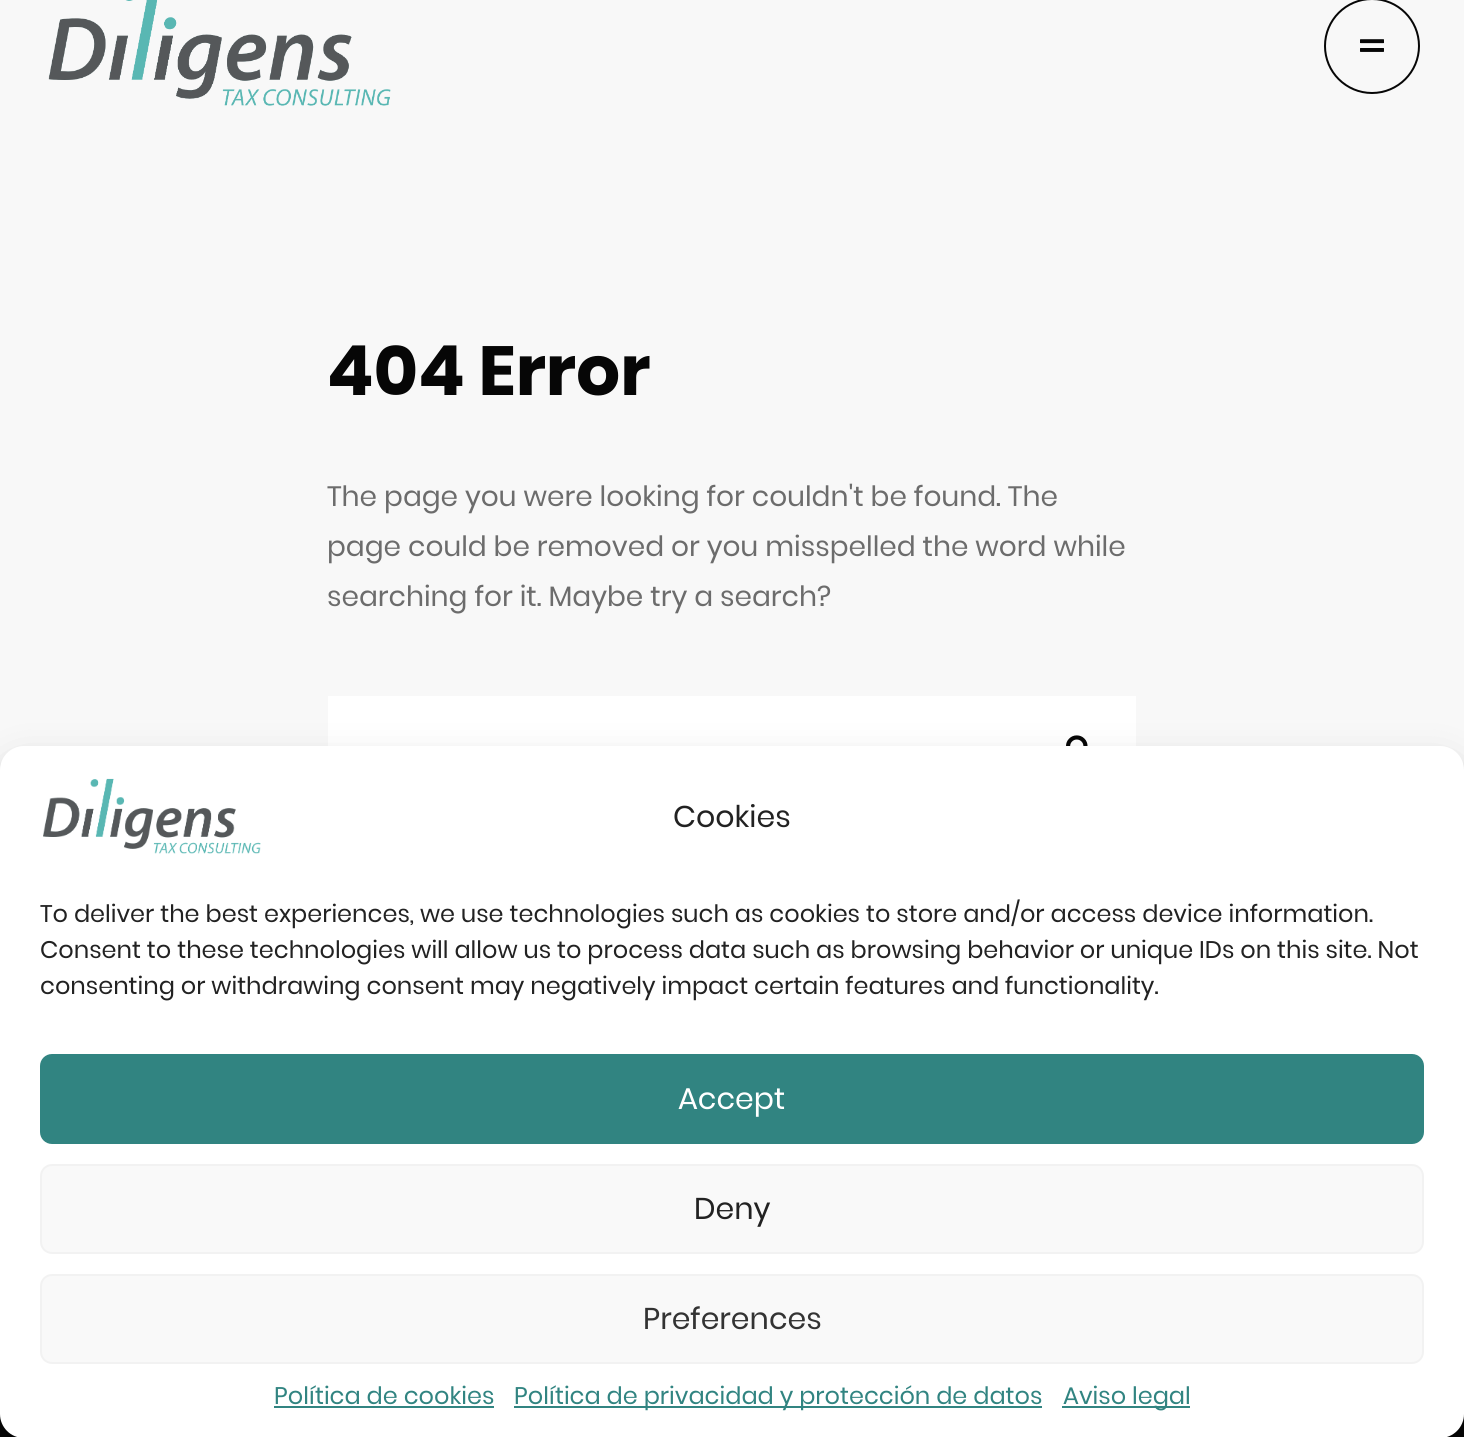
#include <cairo.h>
#include <math.h>
#include <stddef.h>

typedef struct { const char *family; double size; int italic, bold; unsigned color; } style_t;
static cairo_t *ctx;

static void ink(unsigned color) {
    cairo_set_source_rgb(ctx, (color >> 16) / 255.0, (color >> 8 & 255) / 255.0, (color & 255) / 255.0);
}

static void write(double x, double y, const char *s, const style_t *st) {
    cairo_select_font_face(ctx, st->family, st->italic ? CAIRO_FONT_SLANT_ITALIC : CAIRO_FONT_SLANT_NORMAL,
        st->bold ? CAIRO_FONT_WEIGHT_BOLD : CAIRO_FONT_WEIGHT_NORMAL);
    cairo_set_font_size(ctx, st->size);
    ink(st->color);
    cairo_move_to(ctx, x, y);
    cairo_show_text(ctx, s);
}

static void block(double x, double y, double w, double h, unsigned color) {
    ink(color);
    cairo_rectangle(ctx, x, y, w, h);
    cairo_fill(ctx);
}

static void round_path(double x, double y, double w, double h, double r) {
    cairo_new_sub_path(ctx);
    cairo_arc(ctx, x + w - r, y + h - r, r, 0, M_PI / 2);
    cairo_arc(ctx, x + r, y + h - r, r, M_PI / 2, M_PI);
    cairo_arc(ctx, x + r, y + r, r, M_PI, 1.5 * M_PI);
    cairo_arc(ctx, x + w - r, y + r, r, 1.5 * M_PI, 2 * M_PI);
    cairo_close_path(ctx);
}

static void blur_box(double x, double y, double w, double h, double r, double blur, double alpha) {
    cairo_push_group_with_content(ctx, CAIRO_CONTENT_ALPHA);
    cairo_set_operator(ctx, CAIRO_OPERATOR_SOURCE);
    for (int i = 15; i >= -15 && fmin(w, h) + blur * i / 3 > 0; i -= 2) {
        double e = blur * i / 6;
        cairo_set_source_rgba(ctx, 0, 0, 0, alpha * erfc((i - 1) / 8.5) / 2);
        round_path(x - e, y - e, w + 2 * e, h + 2 * e, fmax(0, fmin(r + e + blur * .6, fmin(w, h) / 2 + e)));
        cairo_fill(ctx);
    }
    cairo_pattern_t *soft = cairo_pop_group(ctx);
    cairo_mask(ctx, soft);
    cairo_pattern_destroy(soft);
}

static void paste(const char *path, double x, double y, double w, double h) {
    cairo_surface_t *image = cairo_image_surface_create_from_png(path);
    cairo_save(ctx);
    cairo_set_source_surface(ctx, image, x, y);
    cairo_rectangle(ctx, x, y, w, h);
    cairo_fill(ctx);
    cairo_restore(ctx);
    cairo_surface_destroy(image);
}

static const style_t s1 = {"Poppins", 69.25, 0, 1, 0x060606};
static const style_t s2 = {"Poppins", 28, 0, 0, 0x6c6c6c};
static const style_t s3 = {"Poppins", 30, 0, 0, 0x222222};
static const style_t s4 = {"Poppins", 24, 0, 0, 0x222222};
static const style_t s5 = {"Poppins", 30, 0, 0, 0xffffff};
static const style_t s6 = {"Poppins", 30, 0, 0, 0x333333};
static const style_t s7 = {"Poppins", 24, 0, 0, 0x318481};

int main(void) {
    cairo_surface_t *surface = cairo_image_surface_create(CAIRO_FORMAT_RGB24, 1464, 1437);
    ctx = cairo_create(surface);
    cairo_font_options_t *options = cairo_font_options_create();
    cairo_font_options_set_hint_metrics(options, CAIRO_HINT_METRICS_OFF);
    cairo_font_options_set_hint_style(options, CAIRO_HINT_STYLE_NONE);
    cairo_set_font_options(ctx, options);
    cairo_set_miter_limit(ctx, 4);
    ink(0xf8f8f8);
    cairo_paint(ctx);
    paste("pic1.png", 48, 0, 343, 106);
    cairo_arc(ctx, 1372, 46, 47, 0, 2 * M_PI);
    ink(0x060606);
    cairo_stroke(ctx);
    paste("pic2.png", 1360, 39, 24, 13);
    write(327, 395, "404 Error", &s1);
    write(327, 506, "The page you were looking for couldn't be found. The", &s2);
    write(327, 556, "page could be removed or you misspelled the word while", &s2);
    write(327, 606, "searching for it. Maybe try a search?", &s2);
    block(328, 696, 808, 50, 0xffffff);
    paste("pic3.png", 1066, 735, 22, 11);
    block(0, 1414, 1464, 23, 0x060606);
    ink(0x000000);
    blur_box(0, 758, 1464, 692, 24, 6, 0.23);
    blur_box(0, 766, 1464, 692, 24, 20, 0.19);
    ink(0xffffff);
    round_path(0, 746, 1464, 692, 24);
    cairo_fill(ctx);
    paste("pic4.png", 43, 778, 218, 76);
    write(673, 827, "Cookies", &s3);
    write(40, 922, "To deliver the best experiences, we use technologies such as cookies to store and/or access device information.", &s4);
    write(40, 958, "Consent to these technologies will allow us to process data such as browsing behavior or unique IDs on this site. Not", &s4);
    write(40, 994, "consenting or withdrawing consent may negatively impact certain features and functionality.", &s4);
    ink(0x318481);
    round_path(41, 1055, 1382, 88, 11);
    cairo_fill_preserve(ctx);
    cairo_stroke(ctx);
    write(678, 1109, "Accept", &s5);
    ink(0xf9f9f9);
    round_path(41, 1165, 1382, 88, 11);
    cairo_fill_preserve(ctx);
    ink(0xf2f2f2);
    cairo_stroke(ctx);
    write(694, 1219, "Deny", &s3);
    ink(0xf9f9f9);
    round_path(41, 1275, 1382, 88, 11);
    cairo_fill_preserve(ctx);
    ink(0xf2f2f2);
    cairo_stroke(ctx);
    write(643, 1329, "Preferences", &s6);
    write(274, 1404, "Política de cookies", &s7);
    block(274, 1406, 220, 2, 0x318481);
    block(514, 1406, 528, 2, 0x318481);
    write(514, 1404, "Política de privacidad y protección de datos", &s7);
    block(1062, 1406, 128, 2, 0x318481);
    write(1063, 1404, "Aviso legal", &s7);
    cairo_surface_write_to_png(surface, "screenshot.png");
    cairo_font_options_destroy(options);
    cairo_destroy(ctx);
    cairo_surface_destroy(surface);
    return 0;
}
